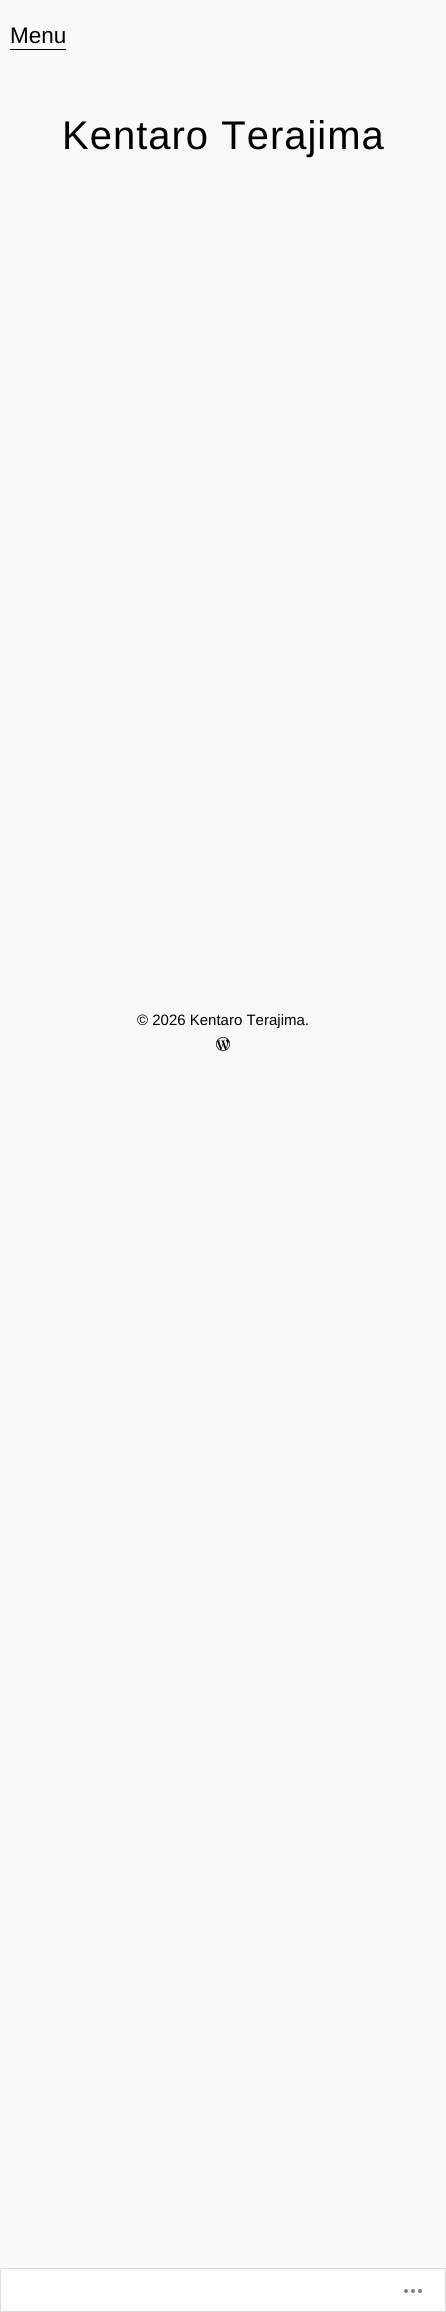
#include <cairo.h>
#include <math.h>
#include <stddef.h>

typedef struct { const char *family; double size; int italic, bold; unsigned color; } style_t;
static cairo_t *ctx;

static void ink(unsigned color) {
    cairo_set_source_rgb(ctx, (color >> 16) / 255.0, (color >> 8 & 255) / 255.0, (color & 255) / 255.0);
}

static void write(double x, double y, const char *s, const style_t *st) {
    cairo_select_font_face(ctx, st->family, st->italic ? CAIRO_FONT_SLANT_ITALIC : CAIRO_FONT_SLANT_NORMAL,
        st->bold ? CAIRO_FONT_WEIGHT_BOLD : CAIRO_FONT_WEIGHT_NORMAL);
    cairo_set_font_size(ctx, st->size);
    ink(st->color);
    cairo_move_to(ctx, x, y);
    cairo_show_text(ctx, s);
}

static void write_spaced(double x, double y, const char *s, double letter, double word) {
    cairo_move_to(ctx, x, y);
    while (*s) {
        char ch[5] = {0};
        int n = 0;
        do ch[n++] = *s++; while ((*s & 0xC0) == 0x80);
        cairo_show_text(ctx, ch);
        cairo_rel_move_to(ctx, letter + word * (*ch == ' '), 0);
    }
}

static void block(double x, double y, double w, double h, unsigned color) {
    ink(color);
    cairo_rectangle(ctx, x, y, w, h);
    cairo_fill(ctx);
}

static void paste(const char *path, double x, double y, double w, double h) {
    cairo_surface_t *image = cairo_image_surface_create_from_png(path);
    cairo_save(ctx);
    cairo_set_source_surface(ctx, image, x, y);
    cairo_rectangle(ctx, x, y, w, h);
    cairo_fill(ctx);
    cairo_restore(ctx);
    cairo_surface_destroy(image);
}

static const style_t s1 = {"Liberation Sans", 22.5, 0, 0, 0x000000};
static const style_t s2 = {"Liberation Sans", 15, 0, 0, 0x000000};

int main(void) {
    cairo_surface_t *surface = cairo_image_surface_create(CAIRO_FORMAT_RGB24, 446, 2312);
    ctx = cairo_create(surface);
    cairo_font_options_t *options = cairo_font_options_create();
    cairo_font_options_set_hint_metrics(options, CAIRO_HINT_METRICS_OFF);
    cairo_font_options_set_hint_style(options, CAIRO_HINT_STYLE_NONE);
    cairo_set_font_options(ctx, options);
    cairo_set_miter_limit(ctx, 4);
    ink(0xf9f9f9);
    cairo_paint(ctx);
    block(10, 49, 56, 1, 0x000000);
    write(10, 43, "Menu", &s1);
    cairo_set_font_size(ctx, 40);
    write_spaced(62, 149, "Kentaro Terajima", 1, 0);
    write(137, 1025, "© 2026 Kentaro Terajima.", &s2);
    paste("pic1.png", 216, 1037, 14, 14);
    ink(0xffffff);
    cairo_rectangle(ctx, 0.5, 2268.5, 445, 43);
    cairo_fill_preserve(ctx);
    ink(0xdddddf);
    cairo_set_line_width(ctx, 1);
    cairo_stroke(ctx);
    paste("pic2.png", 404, 2289, 18, 4);
    cairo_surface_write_to_png(surface, "screenshot.png");
    cairo_font_options_destroy(options);
    cairo_destroy(ctx);
    cairo_surface_destroy(surface);
    return 0;
}
